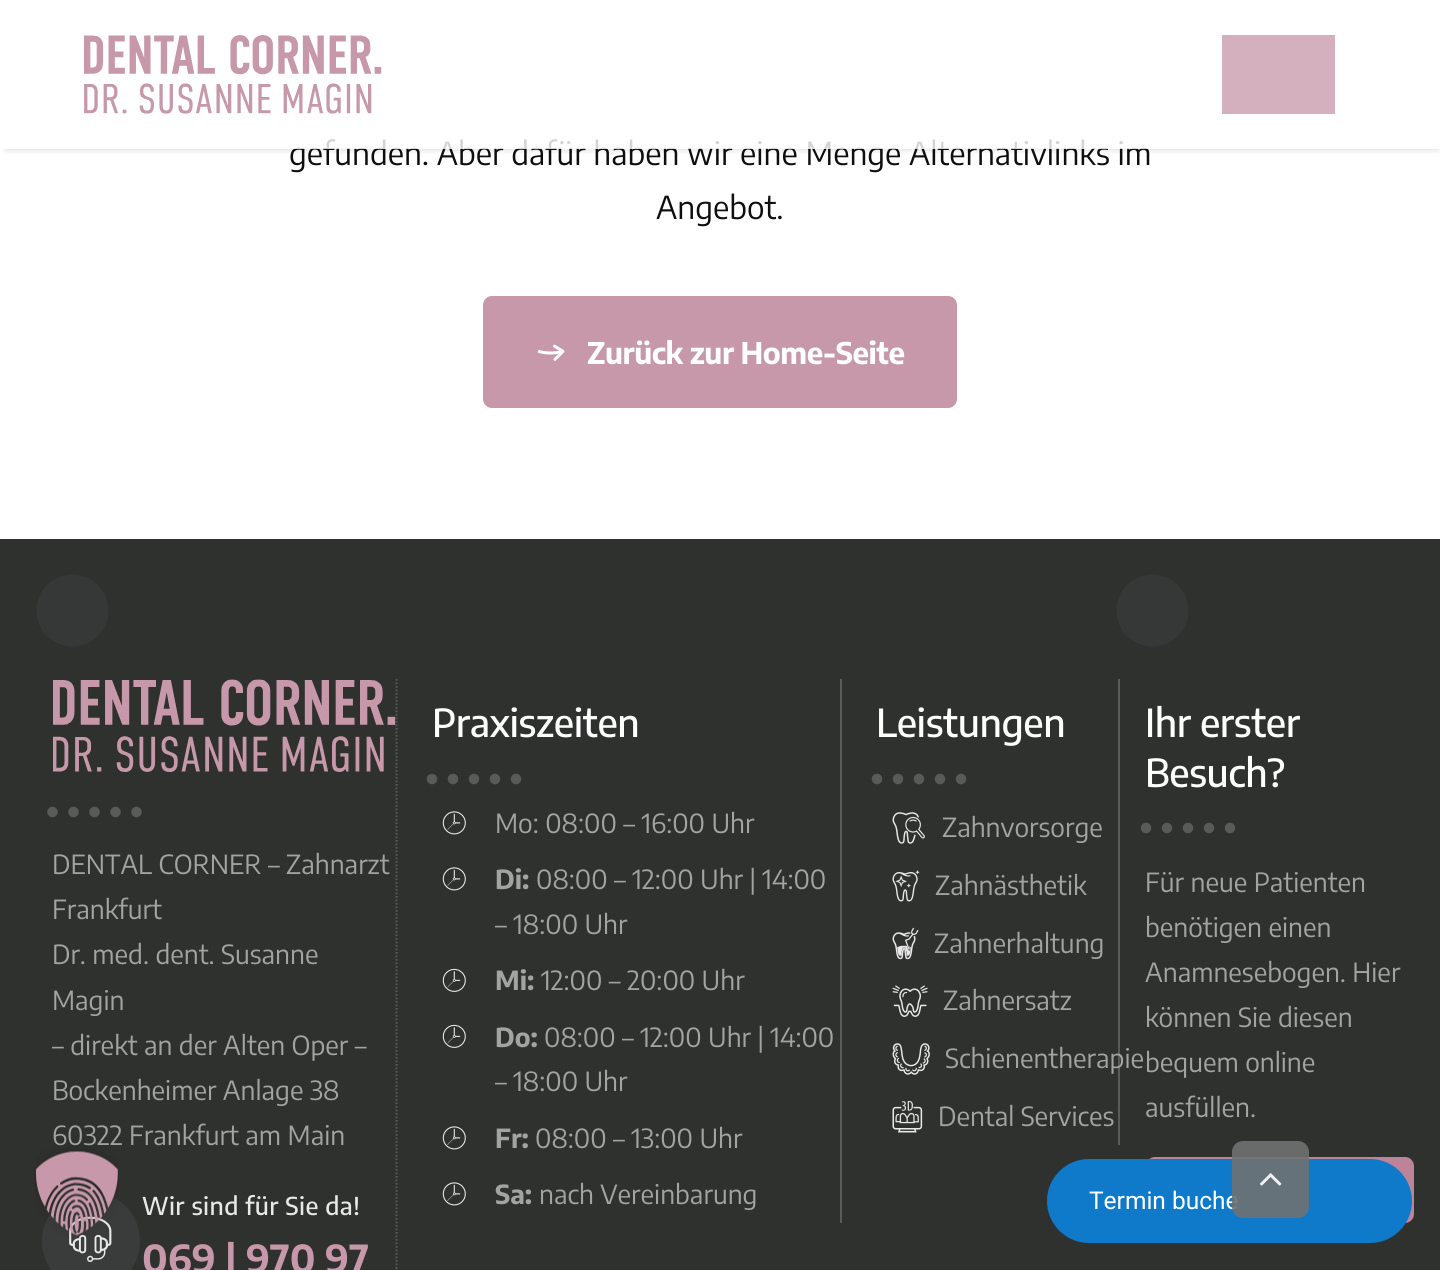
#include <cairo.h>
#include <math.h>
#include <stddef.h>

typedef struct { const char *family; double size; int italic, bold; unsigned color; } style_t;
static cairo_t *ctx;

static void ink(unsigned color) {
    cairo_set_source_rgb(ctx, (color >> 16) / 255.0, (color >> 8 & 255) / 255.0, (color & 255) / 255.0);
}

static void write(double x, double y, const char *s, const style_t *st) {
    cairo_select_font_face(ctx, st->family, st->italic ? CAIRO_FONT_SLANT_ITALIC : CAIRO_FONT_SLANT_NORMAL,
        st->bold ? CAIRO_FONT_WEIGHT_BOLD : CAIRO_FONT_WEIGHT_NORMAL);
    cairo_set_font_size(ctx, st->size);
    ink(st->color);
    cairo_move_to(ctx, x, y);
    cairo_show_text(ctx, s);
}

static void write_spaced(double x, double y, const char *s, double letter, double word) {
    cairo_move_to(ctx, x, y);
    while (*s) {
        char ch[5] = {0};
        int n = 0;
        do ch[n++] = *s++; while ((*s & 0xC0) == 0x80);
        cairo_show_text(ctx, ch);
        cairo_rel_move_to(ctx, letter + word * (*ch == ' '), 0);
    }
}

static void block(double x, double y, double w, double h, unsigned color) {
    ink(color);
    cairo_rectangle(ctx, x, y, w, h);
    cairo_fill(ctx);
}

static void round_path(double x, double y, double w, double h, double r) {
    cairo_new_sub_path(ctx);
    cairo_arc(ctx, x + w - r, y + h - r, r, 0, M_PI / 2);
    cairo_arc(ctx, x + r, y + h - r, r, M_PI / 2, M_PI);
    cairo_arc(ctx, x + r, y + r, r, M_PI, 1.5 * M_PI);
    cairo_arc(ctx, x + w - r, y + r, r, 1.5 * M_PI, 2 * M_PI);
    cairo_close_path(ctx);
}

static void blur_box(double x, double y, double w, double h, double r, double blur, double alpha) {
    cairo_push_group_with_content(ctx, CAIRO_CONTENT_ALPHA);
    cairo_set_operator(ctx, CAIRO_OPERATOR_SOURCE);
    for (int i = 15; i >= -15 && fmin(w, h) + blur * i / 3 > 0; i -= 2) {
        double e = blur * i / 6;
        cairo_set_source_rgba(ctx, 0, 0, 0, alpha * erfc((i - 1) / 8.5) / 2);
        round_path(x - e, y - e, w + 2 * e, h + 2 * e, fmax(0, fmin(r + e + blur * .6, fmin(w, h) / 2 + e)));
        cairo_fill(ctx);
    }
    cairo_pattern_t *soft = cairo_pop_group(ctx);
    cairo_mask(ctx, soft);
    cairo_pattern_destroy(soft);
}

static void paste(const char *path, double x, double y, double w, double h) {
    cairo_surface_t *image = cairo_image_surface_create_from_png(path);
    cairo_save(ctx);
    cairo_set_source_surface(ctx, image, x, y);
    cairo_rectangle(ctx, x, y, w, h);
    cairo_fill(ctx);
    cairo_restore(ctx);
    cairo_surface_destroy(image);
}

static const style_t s1 = {"Encode Sans Condensed", 31.5, 0, 0, 0x0d0e0d};
static const style_t s2 = {"Encode Sans Condensed", 26.25, 0, 0, 0xa1a5a1};
static const style_t s3 = {"Encode Sans Condensed", 38.5, 0, 1, 0xc798a9};
static const style_t s4 = {"Encode Sans Condensed", 26.25, 0, 1, 0xa1a5a1};
static const style_t s5 = {"Roboto", 24.5, 0, 0, 0xffffff};

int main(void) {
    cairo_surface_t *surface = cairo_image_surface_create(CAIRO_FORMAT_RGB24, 1440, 1270);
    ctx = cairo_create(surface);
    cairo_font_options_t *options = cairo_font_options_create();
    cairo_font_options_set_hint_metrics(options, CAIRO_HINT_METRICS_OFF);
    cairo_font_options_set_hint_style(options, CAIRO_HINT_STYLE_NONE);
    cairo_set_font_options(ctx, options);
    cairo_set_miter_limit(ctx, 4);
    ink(0xffffff);
    cairo_paint(ctx);
    cairo_save(ctx);
    cairo_set_fill_rule(ctx, CAIRO_FILL_RULE_EVEN_ODD);
    cairo_new_path(ctx);
    cairo_move_to(ctx, 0, 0);
    cairo_line_to(ctx, 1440, 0);
    cairo_line_to(ctx, 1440, 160);
    cairo_line_to(ctx, 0, 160);
    cairo_close_path(ctx);
    cairo_move_to(ctx, 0, 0);
    cairo_line_to(ctx, 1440, 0);
    cairo_line_to(ctx, 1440, 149);
    cairo_line_to(ctx, 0, 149);
    cairo_close_path(ctx);
    cairo_clip(ctx);
    ink(0x0c0d0c);
    blur_box(5, 9, 1434, 142, 0, 2.5, 0.11);
    cairo_restore(ctx);
    write(289, 165, "gefunden. Aber dafür haben wir eine Menge Alternativlinks im", &s1);
    cairo_set_source_rgba(ctx, 1, 1, 1, 0.82);
    cairo_rectangle(ctx, 5, 139, 1434, 10);
    cairo_fill(ctx);
    paste("pic1.png", 84, 35, 298, 79);
    block(1222, 35, 113, 79, 0xd4afbd);
    write(656, 219, "Angebot.", &s1);
    ink(0xc798a9);
    round_path(483, 296, 474, 112, 9);
    cairo_fill(ctx);
    paste("pic2.png", 537, 344, 28, 17);
    cairo_select_font_face(ctx, "Encode Sans Condensed", CAIRO_FONT_SLANT_NORMAL, CAIRO_FONT_WEIGHT_BOLD);
    cairo_set_font_size(ctx, 29.75);
    ink(0xffffff);
    write_spaced(587, 364, "Zurück zur Home-Seite", -0.45, 0);
    block(0, 539, 1440, 731, 0x363837);
    paste("pic3.png", 0, 539, 1440, 731);
    cairo_new_path(ctx);
    cairo_move_to(ctx, 396.5, 679);
    cairo_line_to(ctx, 396.5, 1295);
    ink(0x595a59);
    cairo_set_line_width(ctx, 1.8);
    cairo_set_dash(ctx, (double[]){1.75, 1.75}, 2, 0);
    cairo_stroke(ctx);
    paste("pic4.png", 53, 679, 343, 93);
    cairo_new_path(ctx);
    cairo_move_to(ctx, 52.5, 812);
    cairo_line_to(ctx, 140, 812);
    cairo_set_line_width(ctx, 10.5);
    cairo_set_line_cap(ctx, CAIRO_LINE_CAP_ROUND);
    cairo_set_dash(ctx, (double[]){0, 21}, 2, 0);
    cairo_stroke(ctx);
    write(52, 874, "DENTAL CORNER – Zahnarzt", &s2);
    write(52, 919, "Frankfurt", &s2);
    write(52, 964, "Dr. med. dent. Susanne", &s2);
    write(52, 1010, "Magin", &s2);
    write(52, 1055, "– direkt an der Alten Oper –", &s2);
    write(52, 1100, "Bockenheimer Anlage 38", &s2);
    write(52, 1145, "60322 Frankfurt am Main", &s2);
    ink(0x393c3b);
    cairo_new_path(ctx);
    cairo_arc(ctx, 91, 1241, 49, 0, 2 * M_PI);
    cairo_fill(ctx);
    paste("pic5.png", 69, 1216, 43, 46);
    cairo_select_font_face(ctx, "Encode Sans Condensed Medium", CAIRO_FONT_SLANT_NORMAL, CAIRO_FONT_WEIGHT_NORMAL);
    cairo_set_font_size(ctx, 24.5);
    ink(0xe7e8e7);
    write_spaced(142, 1215, "Wir sind für Sie da!", 0.4, 0);
    write(142, 1273, "069 | 970 97", &s3);
    block(840, 679, 2, 544, 0x595a59);
    cairo_select_font_face(ctx, "Encode Sans Condensed Medium", CAIRO_FONT_SLANT_NORMAL, CAIRO_FONT_WEIGHT_NORMAL);
    ink(0xffffff);
    write_spaced(432, 737, "Praxiszeiten", -0.4, 0);
    cairo_new_path(ctx);
    cairo_move_to(ctx, 432, 779);
    cairo_line_to(ctx, 520, 779);
    ink(0x595a59);
    cairo_stroke(ctx);
    paste("pic6.png", 442, 811, 24, 24);
    write(495, 833, "Mo: 08:00 – 16:00 Uhr", &s2);
    paste("pic6.png", 442, 867, 24, 24);
    write(495, 889, "Di:", &s4);
    write(536, 889, "08:00 – 12:00 Uhr | 14:00", &s2);
    write(495, 934, "– 18:00 Uhr", &s2);
    paste("pic7.png", 442, 968, 24, 24);
    write(495, 990, "Mi:", &s4);
    write(541, 990, "12:00 – 20:00 Uhr", &s2);
    paste("pic7.png", 442, 1024, 24, 24);
    write(495, 1047, "Do:", &s4);
    write(544, 1047, "08:00 – 12:00 Uhr | 14:00", &s2);
    write(495, 1091, "– 18:00 Uhr", &s2);
    paste("pic6.png", 442, 1126, 24, 24);
    write(495, 1148, "Fr:", &s4);
    write(535, 1148, "08:00 – 13:00 Uhr", &s2);
    paste("pic6.png", 442, 1182, 24, 24);
    write(495, 1204, "Sa:", &s4);
    write(539, 1204, "nach Vereinbarung", &s2);
    block(1118, 679, 2, 466, 0x595a59);
    cairo_select_font_face(ctx, "Encode Sans Condensed Medium", CAIRO_FONT_SLANT_NORMAL, CAIRO_FONT_WEIGHT_NORMAL);
    cairo_set_font_size(ctx, 38.5);
    ink(0xffffff);
    write_spaced(876, 737, "Leistungen", -0.4, 0);
    cairo_new_path(ctx);
    cairo_move_to(ctx, 877, 779);
    cairo_line_to(ctx, 964, 779);
    ink(0x595a59);
    cairo_stroke(ctx);
    paste("pic8.png", 892, 812, 33, 32);
    write(942, 837, "Zahnvorsorge", &s2);
    paste("pic9.png", 892, 870, 28, 32);
    write(935, 895, "Zahnästhetik", &s2);
    paste("pic10.png", 892, 927, 27, 33);
    write(934, 953, "Zahnerhaltung", &s2);
    paste("pic11.png", 892, 985, 36, 32);
    write(943, 1010, "Zahnersatz", &s2);
    paste("pic12.png", 892, 1043, 38, 32);
    write(945, 1068, "Schienentherapie", &s2);
    paste("pic13.png", 892, 1101, 31, 32);
    write(938, 1126, "Dental Services", &s2);
    cairo_select_font_face(ctx, "Encode Sans Condensed Medium", CAIRO_FONT_SLANT_NORMAL, CAIRO_FONT_WEIGHT_NORMAL);
    cairo_set_font_size(ctx, 38.5);
    ink(0xffffff);
    write_spaced(1145, 737, "Ihr erster", -0.4, 0);
    write_spaced(1145, 787, "Besuch?", -0.4, 0);
    cairo_new_path(ctx);
    cairo_move_to(ctx, 1146, 828);
    cairo_line_to(ctx, 1234, 828);
    ink(0x595a59);
    cairo_stroke(ctx);
    write(1145, 892, "Für neue Patienten", &s2);
    write(1145, 937, "benötigen einen", &s2);
    write(1145, 982, "Anamnesebogen. Hier", &s2);
    write(1145, 1027, "können Sie diesen", &s2);
    write(1145, 1072, "bequem online", &s2);
    write(1145, 1117, "ausfüllen.", &s2);
    ink(0xbd8499);
    round_path(1146, 1157, 268, 66, 9);
    cairo_fill(ctx);
    paste("pic14.png", 35, 1144, 84, 95);
    ink(0x107aca);
    round_path(1047, 1159, 365, 84, 42);
    cairo_fill(ctx);
    write(1089, 1209, "Termin buche", &s5);
    cairo_set_source_rgba(ctx, 0.431, 0.447, 0.439, 0.9);
    round_path(1232, 1141, 77, 77, 11);
    cairo_fill(ctx);
    paste("pic15.png", 1260, 1173, 22, 13);
    cairo_surface_write_to_png(surface, "screenshot.png");
    cairo_font_options_destroy(options);
    cairo_destroy(ctx);
    cairo_surface_destroy(surface);
    return 0;
}
